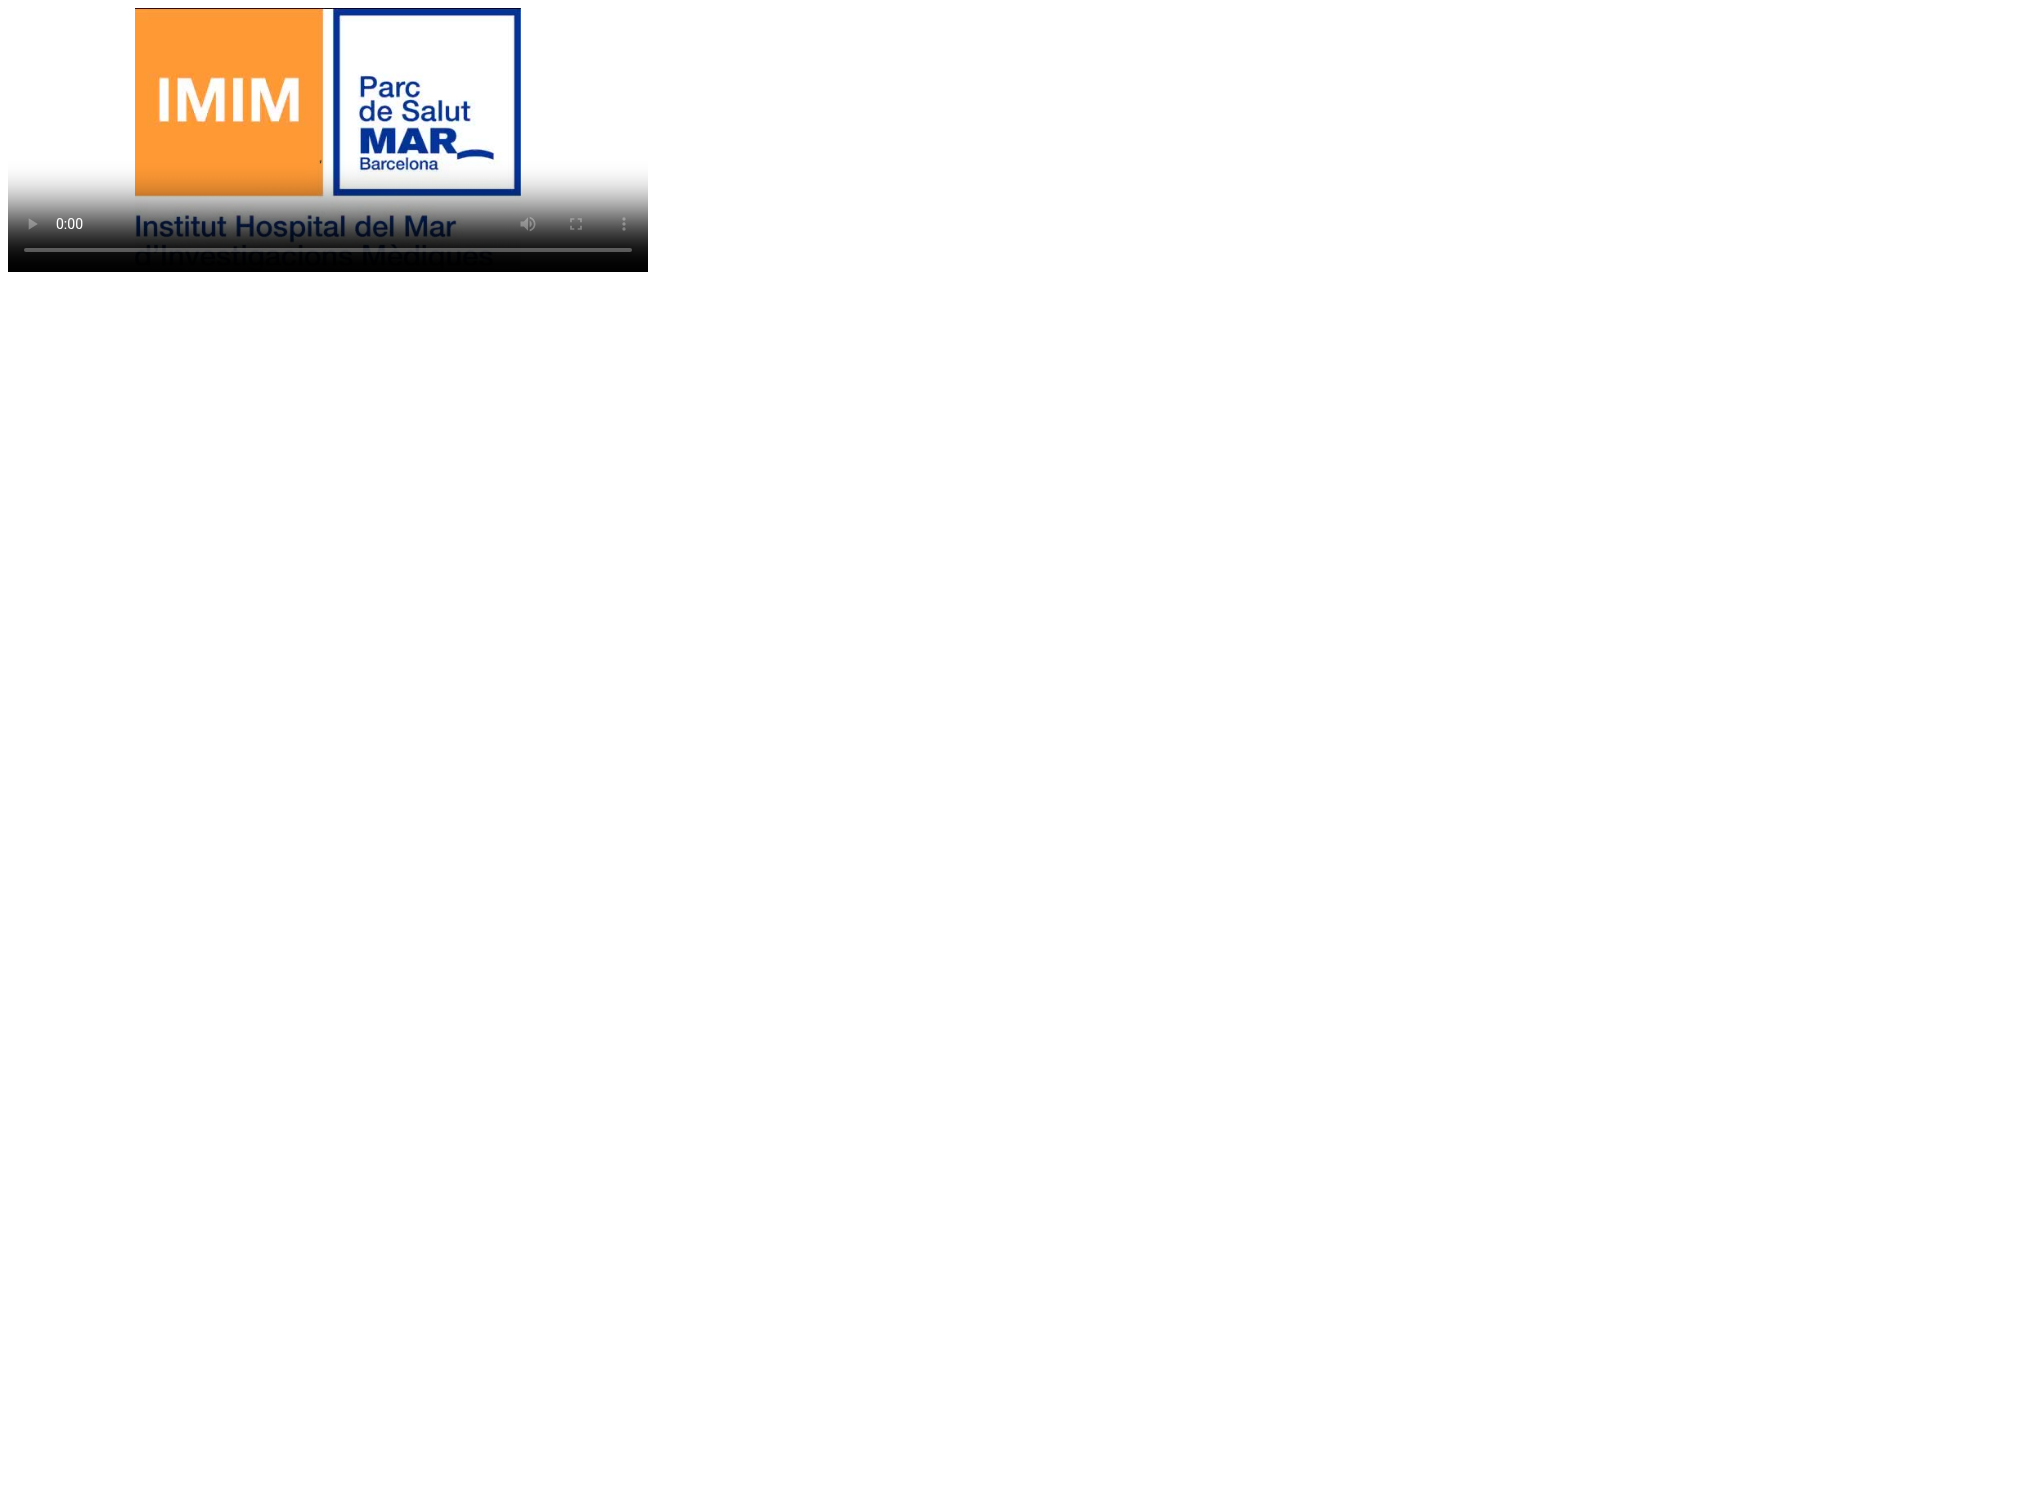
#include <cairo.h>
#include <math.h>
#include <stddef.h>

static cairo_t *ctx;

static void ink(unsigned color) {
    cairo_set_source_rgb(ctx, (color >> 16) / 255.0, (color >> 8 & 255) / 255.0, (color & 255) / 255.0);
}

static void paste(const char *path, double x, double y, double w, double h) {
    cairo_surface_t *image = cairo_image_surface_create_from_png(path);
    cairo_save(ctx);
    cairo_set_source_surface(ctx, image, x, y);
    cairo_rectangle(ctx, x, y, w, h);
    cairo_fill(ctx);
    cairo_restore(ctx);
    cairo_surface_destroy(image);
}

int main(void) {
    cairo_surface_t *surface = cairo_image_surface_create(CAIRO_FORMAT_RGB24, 2039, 1510);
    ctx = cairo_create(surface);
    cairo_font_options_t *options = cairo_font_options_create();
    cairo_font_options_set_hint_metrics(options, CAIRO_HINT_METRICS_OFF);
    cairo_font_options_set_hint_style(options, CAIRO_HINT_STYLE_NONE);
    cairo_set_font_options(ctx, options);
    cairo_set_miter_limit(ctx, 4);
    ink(0xffffff);
    cairo_paint(ctx);
    paste("pic1.png", 8, 8, 640, 264);
    cairo_surface_write_to_png(surface, "screenshot.png");
    cairo_font_options_destroy(options);
    cairo_destroy(ctx);
    cairo_surface_destroy(surface);
    return 0;
}
